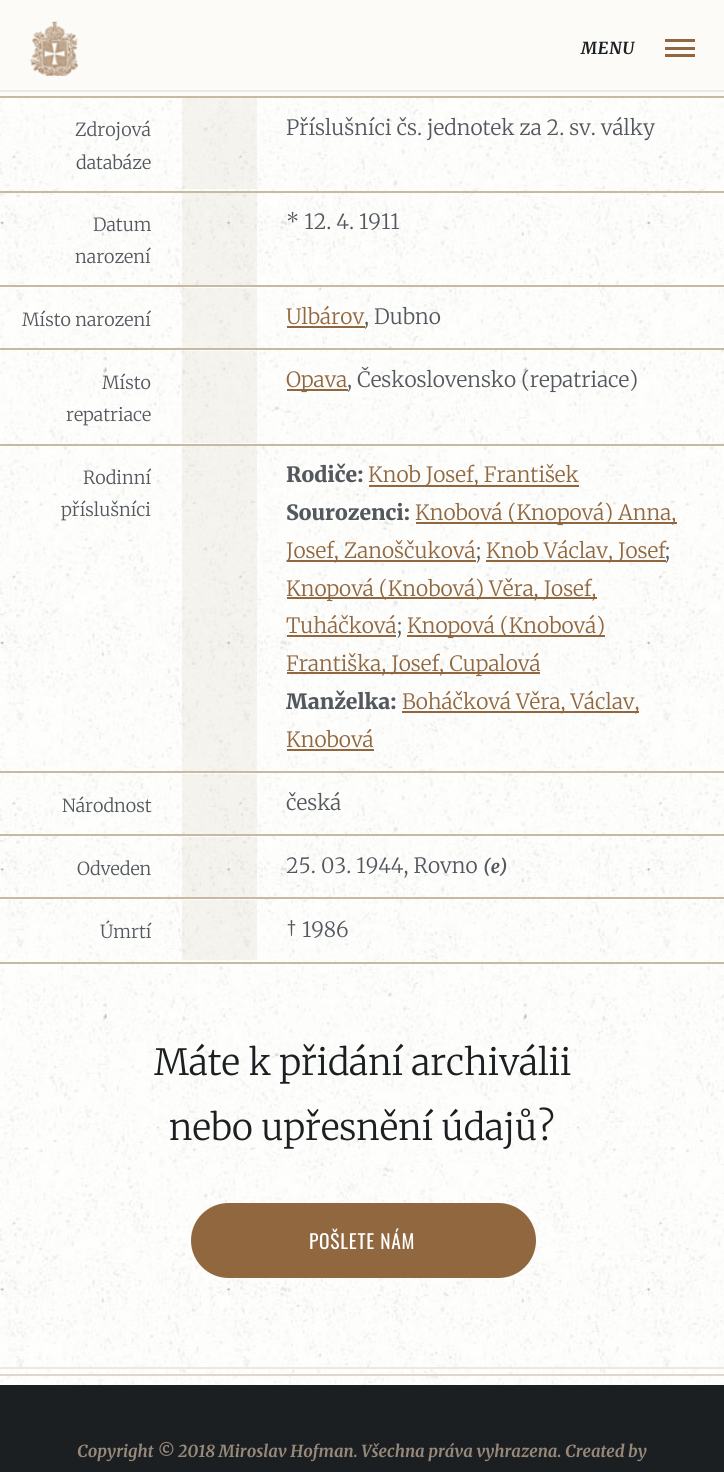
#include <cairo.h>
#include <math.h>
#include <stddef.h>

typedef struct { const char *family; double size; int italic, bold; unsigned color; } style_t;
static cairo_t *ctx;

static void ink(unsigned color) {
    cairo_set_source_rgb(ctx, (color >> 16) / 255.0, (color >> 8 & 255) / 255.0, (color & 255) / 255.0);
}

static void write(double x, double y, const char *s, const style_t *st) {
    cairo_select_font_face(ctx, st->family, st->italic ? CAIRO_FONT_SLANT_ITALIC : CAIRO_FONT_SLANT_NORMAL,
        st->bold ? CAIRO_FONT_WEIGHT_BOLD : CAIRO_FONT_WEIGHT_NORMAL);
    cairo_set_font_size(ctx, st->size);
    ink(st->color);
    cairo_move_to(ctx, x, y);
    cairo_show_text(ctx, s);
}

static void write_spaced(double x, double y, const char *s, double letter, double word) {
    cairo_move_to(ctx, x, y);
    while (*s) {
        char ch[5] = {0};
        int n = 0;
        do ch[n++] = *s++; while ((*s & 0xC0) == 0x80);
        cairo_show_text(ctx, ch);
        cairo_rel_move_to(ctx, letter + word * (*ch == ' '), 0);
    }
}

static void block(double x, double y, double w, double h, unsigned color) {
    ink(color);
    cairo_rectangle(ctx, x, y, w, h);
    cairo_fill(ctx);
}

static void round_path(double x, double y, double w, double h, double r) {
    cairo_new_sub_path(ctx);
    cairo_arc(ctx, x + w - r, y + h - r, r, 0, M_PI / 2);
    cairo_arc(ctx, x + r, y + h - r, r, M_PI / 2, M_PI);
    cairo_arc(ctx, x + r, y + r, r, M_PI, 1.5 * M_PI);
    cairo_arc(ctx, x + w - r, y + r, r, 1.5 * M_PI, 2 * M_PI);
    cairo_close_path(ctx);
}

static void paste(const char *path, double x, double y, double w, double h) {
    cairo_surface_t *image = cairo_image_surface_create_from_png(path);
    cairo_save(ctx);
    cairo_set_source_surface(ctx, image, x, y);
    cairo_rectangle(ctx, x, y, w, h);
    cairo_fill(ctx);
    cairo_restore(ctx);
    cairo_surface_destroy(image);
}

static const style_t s1 = {"Merriweather Light", 18, 0, 0, 0x53585e};
static const style_t s2 = {"Merriweather Light", 21, 0, 0, 0x53585e};
static const style_t s3 = {"Merriweather Light", 21, 0, 0, 0x91673f};
static const style_t s4 = {"Merriweather Black", 21, 0, 0, 0x53585e};
static const style_t s5 = {"Merriweather Light", 18, 1, 0, 0x53585e};
static const style_t s6 = {"Merriweather Light", 36, 0, 0, 0x1c1f21};
static const style_t s7 = {"Merriweather Light", 16.5, 1, 0, 0x96887a};

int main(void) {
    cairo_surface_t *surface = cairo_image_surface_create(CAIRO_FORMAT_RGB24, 724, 1472);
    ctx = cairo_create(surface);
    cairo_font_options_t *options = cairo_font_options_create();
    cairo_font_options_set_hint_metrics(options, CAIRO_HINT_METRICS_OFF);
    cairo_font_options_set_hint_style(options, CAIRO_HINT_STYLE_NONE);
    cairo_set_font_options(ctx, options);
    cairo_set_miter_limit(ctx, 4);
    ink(0xffffff);
    cairo_paint(ctx);
    paste("pic1.png", 0, 98, 724, 1287);
    block(0, 0, 724, 96, 0xfcfbf8);
    paste("pic2.png", 30, 21, 48, 55);
    block(665, 39, 30, 3, 0x91673f);
    cairo_select_font_face(ctx, "Merriweather Light", CAIRO_FONT_SLANT_ITALIC, CAIRO_FONT_WEIGHT_NORMAL);
    cairo_set_font_size(ctx, 16.5);
    ink(0x1c1f21);
    write_spaced(581, 54, "MENU", 0.75, 0);
    block(665, 47, 30, 3, 0x91673f);
    block(665, 54, 30, 3, 0x91673f);
    block(0, 90, 724, 2, 0xeee8e1);
    write(75, 136, "Zdrojová", &s1);
    write(76, 169, "databáze", &s1);
    cairo_set_source_rgba(ctx, 0.78, 0.737, 0.639, 0.15);
    cairo_rectangle(ctx, 182, 98, 75, 91);
    cairo_fill(ctx);
    block(0, 96, 724, 2, 0xc6bba2);
    write(286, 135, "Příslušníci čs. jednotek za 2. sv. války", &s2);
    write(93, 231, "Datum", &s1);
    write(75, 263, "narození", &s1);
    cairo_set_source_rgba(ctx, 0.78, 0.737, 0.639, 0.15);
    cairo_rectangle(ctx, 182, 193, 75, 92);
    cairo_fill(ctx);
    block(0, 191, 724, 2, 0xc6bba2);
    write(286, 229, "* 12. 4. 1911", &s2);
    write(22, 326, "Místo narození", &s1);
    cairo_set_source_rgba(ctx, 0.78, 0.737, 0.639, 0.15);
    cairo_rectangle(ctx, 182, 288, 75, 60);
    cairo_fill(ctx);
    block(0, 285, 724, 2, 0xc6bba2);
    write(286, 324, "Ulbárov", &s3);
    block(287, 326, 78, 2, 0x91673f);
    write(364, 324, ", Dubno", &s2);
    write(102, 389, "Místo", &s1);
    write(66, 421, "repatriace", &s1);
    cairo_set_source_rgba(ctx, 0.78, 0.737, 0.639, 0.15);
    cairo_rectangle(ctx, 182, 351, 75, 92);
    cairo_fill(ctx);
    block(0, 348, 724, 2, 0xc6bba2);
    block(287, 389, 61, 2, 0x91673f);
    write(286, 387, "Opava", &s3);
    write(347, 387, ", Československo (repatriace)", &s2);
    write(83, 484, "Rodinní", &s1);
    write(61, 516, "příslušníci", &s1);
    cairo_set_source_rgba(ctx, 0.78, 0.737, 0.639, 0.15);
    cairo_rectangle(ctx, 182, 446, 75, 325);
    cairo_fill(ctx);
    block(0, 444, 724, 2, 0xc6bba2);
    write(286, 482, "Rodiče:", &s4);
    block(369, 485, 210, 2, 0x91673f);
    write(368, 482, "Knob Josef, František", &s3);
    write(286, 520, "Sourozenci:", &s4);
    block(416, 522, 261, 2, 0x91673f);
    write(415, 520, "Knobová (Knopová) Anna,", &s3);
    block(287, 560, 189, 2, 0x91673f);
    write(286, 558, "Josef, Zanoščuková", &s3);
    write(476, 558, ";", &s2);
    block(486, 560, 180, 2, 0x91673f);
    write(486, 558, "Knob Václav, Josef", &s3);
    write(665, 558, ";", &s2);
    block(287, 597, 310, 2, 0x91673f);
    write(286, 596, "Knopová (Knobová) Věra, Josef,", &s3);
    write(286, 633, "Tuháčková", &s3);
    block(287, 635, 109, 2, 0x91673f);
    write(397, 633, ";", &s2);
    block(407, 635, 198, 2, 0x91673f);
    write(407, 633, "Knopová (Knobová)", &s3);
    block(287, 672, 253, 2, 0x91673f);
    write(286, 671, "Františka, Josef, Cupalová", &s3);
    write(286, 709, "Manželka:", &s4);
    block(402, 711, 237, 2, 0x91673f);
    write(402, 709, "Boháčková Věra, Václav,", &s3);
    write(286, 747, "Knobová", &s3);
    block(287, 749, 87, 2, 0x91673f);
    write(62, 812, "Národnost", &s1);
    cairo_set_source_rgba(ctx, 0.78, 0.737, 0.639, 0.15);
    cairo_rectangle(ctx, 182, 774, 75, 60);
    cairo_fill(ctx);
    block(0, 771, 724, 2, 0xc6bba2);
    write(286, 810, "česká", &s2);
    write(77, 875, "Odveden", &s1);
    cairo_set_source_rgba(ctx, 0.78, 0.737, 0.639, 0.15);
    cairo_rectangle(ctx, 182, 837, 75, 60);
    cairo_fill(ctx);
    block(0, 834, 724, 2, 0xc6bba2);
    write(286, 873, "25. 03. 1944, Rovno", &s2);
    write(483, 873, "(e)", &s5);
    write(100, 938, "Úmrtí", &s1);
    cairo_set_source_rgba(ctx, 0.78, 0.737, 0.639, 0.15);
    cairo_rectangle(ctx, 182, 900, 75, 60);
    cairo_fill(ctx);
    block(0, 897, 724, 2, 0xc6bba2);
    block(0, 962, 724, 2, 0xc6bba2);
    write(286, 937, "† 1986", &s2);
    write(154, 1075, "Máte k přidání archiválii", &s6);
    write(169, 1140, "nebo upřesnění údajů?", &s6);
    ink(0x91673f);
    round_path(191, 1203, 345, 75, 37.5);
    cairo_fill(ctx);
    cairo_select_font_face(ctx, "Oswald", CAIRO_FONT_SLANT_NORMAL, CAIRO_FONT_WEIGHT_NORMAL);
    cairo_set_font_size(ctx, 19.5);
    ink(0xffffff);
    write_spaced(309, 1249, "POŠLETE NÁM", 0.75, 0);
    block(0, 1367, 724, 2, 0xeee8e1);
    block(0, 1374, 724, 2, 0xe1d6ca);
    block(0, 1385, 724, 87, 0x1c1f21);
    write(77, 1457, "Copyright © 2018 Miroslav Hofman. Všechna práva vyhrazena. Created by", &s7);
    cairo_surface_write_to_png(surface, "screenshot.png");
    cairo_font_options_destroy(options);
    cairo_destroy(ctx);
    cairo_surface_destroy(surface);
    return 0;
}
